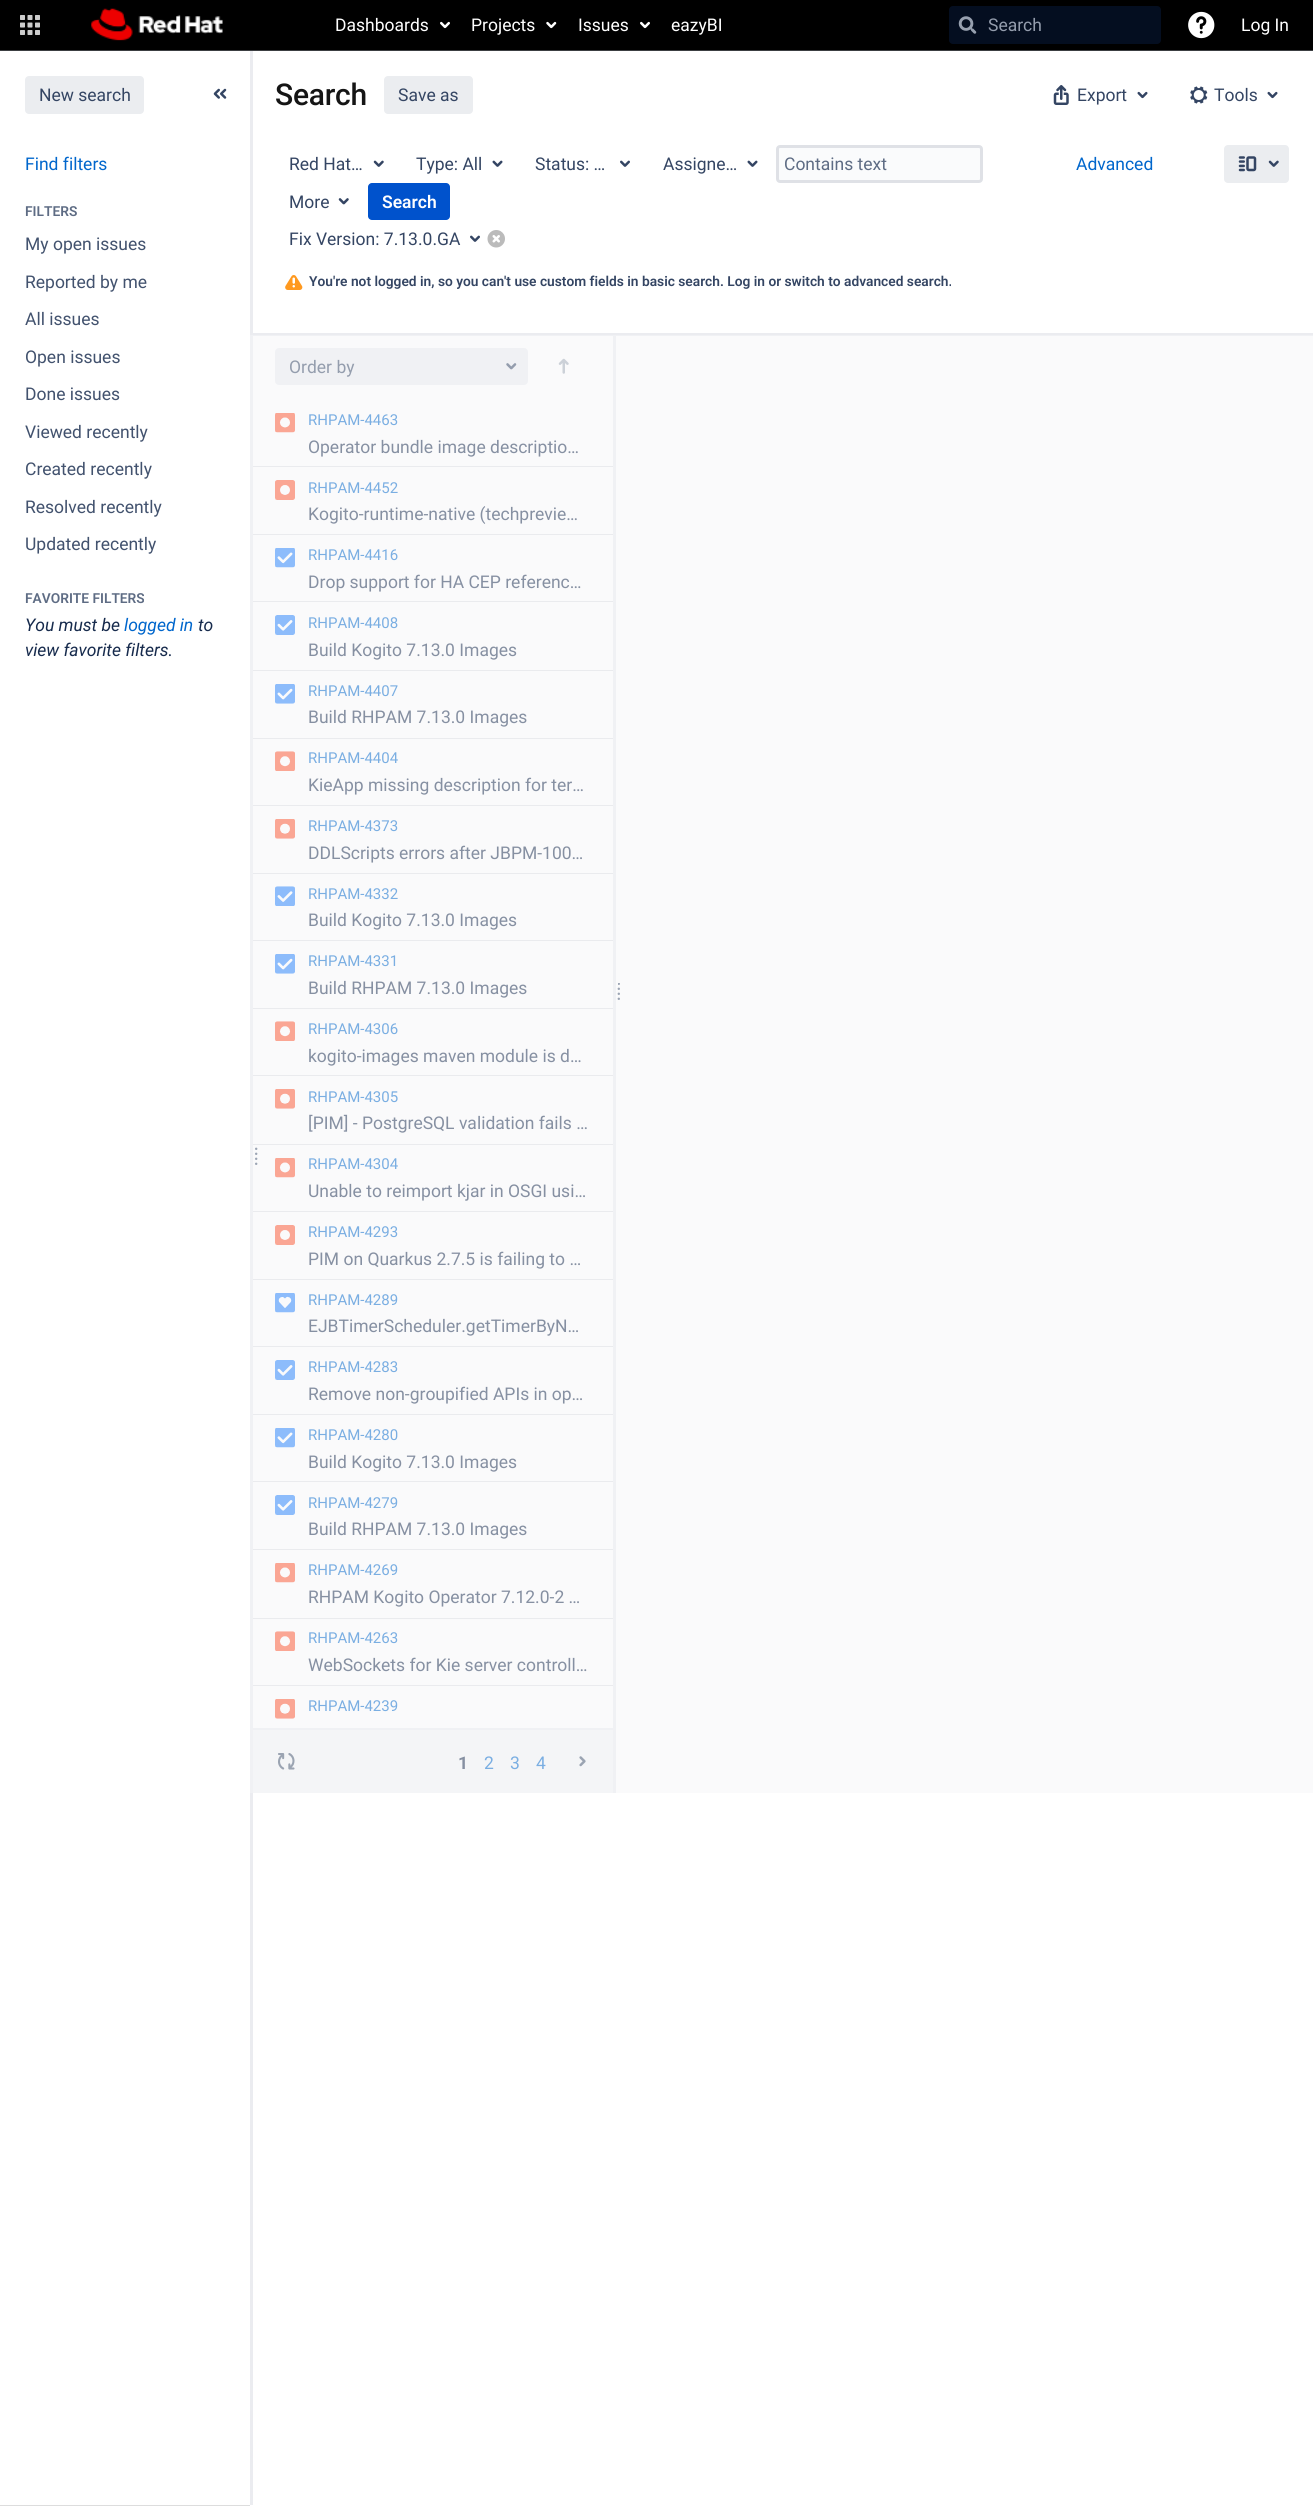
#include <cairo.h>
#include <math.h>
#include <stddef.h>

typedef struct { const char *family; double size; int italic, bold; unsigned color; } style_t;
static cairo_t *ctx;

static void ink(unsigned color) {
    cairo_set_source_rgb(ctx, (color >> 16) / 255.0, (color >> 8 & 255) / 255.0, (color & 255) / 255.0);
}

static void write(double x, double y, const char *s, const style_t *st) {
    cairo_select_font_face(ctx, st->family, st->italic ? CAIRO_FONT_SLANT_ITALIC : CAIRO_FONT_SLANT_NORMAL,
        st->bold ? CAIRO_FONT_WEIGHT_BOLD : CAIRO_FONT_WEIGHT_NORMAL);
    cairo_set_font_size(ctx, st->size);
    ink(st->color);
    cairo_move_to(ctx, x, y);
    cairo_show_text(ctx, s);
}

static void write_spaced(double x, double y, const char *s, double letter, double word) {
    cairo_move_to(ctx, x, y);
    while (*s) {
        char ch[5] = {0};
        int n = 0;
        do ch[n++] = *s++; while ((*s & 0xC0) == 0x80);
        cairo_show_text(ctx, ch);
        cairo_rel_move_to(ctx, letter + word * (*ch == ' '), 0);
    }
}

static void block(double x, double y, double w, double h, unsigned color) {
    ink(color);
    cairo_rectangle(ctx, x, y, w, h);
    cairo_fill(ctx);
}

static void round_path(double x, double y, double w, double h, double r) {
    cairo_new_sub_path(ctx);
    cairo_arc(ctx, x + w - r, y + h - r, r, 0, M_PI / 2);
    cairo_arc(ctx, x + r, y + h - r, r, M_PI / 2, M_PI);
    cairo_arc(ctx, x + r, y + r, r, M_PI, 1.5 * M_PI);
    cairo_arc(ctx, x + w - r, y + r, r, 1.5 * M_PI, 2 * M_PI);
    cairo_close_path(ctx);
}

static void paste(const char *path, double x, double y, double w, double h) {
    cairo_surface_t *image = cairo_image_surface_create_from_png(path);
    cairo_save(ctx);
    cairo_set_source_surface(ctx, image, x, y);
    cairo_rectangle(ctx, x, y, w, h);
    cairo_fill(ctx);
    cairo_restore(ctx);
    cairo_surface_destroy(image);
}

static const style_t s1 = {"Roboto", 17.5, 0, 0, 0xffffff};
static const style_t s2 = {"Roboto", 17.5, 0, 0, 0x949dad};
static const style_t s3 = {"Roboto", 17.5, 0, 0, 0x344563};
static const style_t s4 = {"Roboto", 17.5, 0, 0, 0x0066cc};
static const style_t s5 = {"Roboto SemiBold", 13.75, 0, 0, 0x5e6c84};
static const style_t s6 = {"Roboto", 17.5, 0, 0, 0x42526e};
static const style_t s7 = {"Roboto", 17.5, 1, 0, 0x172b4d};
static const style_t s8 = {"Roboto", 17.5, 1, 0, 0x0066cc};
static const style_t s9 = {"Roboto", 17.5, 0, 0, 0x5e6c84};
static const style_t s10 = {"Roboto SemiBold", 17.5, 0, 0, 0xffffff};
static const style_t s11 = {"Roboto SemiBold", 13.75, 0, 0, 0x344563};
static const style_t s12 = {"Roboto", 15, 0, 0, 0x7aaee2};
static const style_t s13 = {"Roboto", 17.5, 0, 0, 0x8690a2};
static const style_t s14 = {"Roboto", 17.5, 0, 1, 0x8690a2};
static const style_t s15 = {"Roboto", 17.5, 0, 0, 0x7aaee2};

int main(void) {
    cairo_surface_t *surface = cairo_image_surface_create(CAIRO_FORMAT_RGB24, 1313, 2506);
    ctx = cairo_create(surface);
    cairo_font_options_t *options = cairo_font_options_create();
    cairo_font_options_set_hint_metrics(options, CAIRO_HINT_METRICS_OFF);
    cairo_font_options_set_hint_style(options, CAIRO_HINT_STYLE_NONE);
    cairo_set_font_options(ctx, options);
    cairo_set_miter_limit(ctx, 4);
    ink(0xffffff);
    cairo_paint(ctx);
    block(0, 0, 1313, 50, 0x000000);
    block(0, 50, 1313, 1, 0x3c3f42);
    paste("pic1.png", 20, 15, 20, 20);
    paste("pic2.png", 91, 8, 132, 33);
    write(335, 31, "Dashboards", &s1);
    paste("pic3.png", 440, 21, 10, 8);
    write(471, 31, "Projects", &s1);
    paste("pic4.png", 546, 21, 11, 8);
    write(578, 31, "Issues", &s1);
    paste("pic3.png", 640, 21, 10, 8);
    write(671, 31, "eazyBI", &s1);
    ink(0x040e20);
    round_path(949, 6, 212, 38, 4);
    cairo_fill(ctx);
    paste("pic5.png", 958, 16, 19, 18);
    write(988, 31, "Search", &s2);
    paste("pic6.png", 1188, 11, 27, 28);
    write(1241, 31, "Log In", &s1);
    block(253, 336, 1060, 1457, 0xfafafb);
    block(0, 2505, 250, 1, 0xdddddd);
    ink(0xebedf0);
    round_path(25, 76, 119, 38, 4);
    cairo_fill(ctx);
    write(39, 101, "New search", &s3);
    paste("pic7.png", 213, 88, 14, 11);
    write(25, 170, "Find filters", &s4);
    write(25, 216, "FILTERS", &s5);
    write(25, 250, "My open issues", &s6);
    write(25, 288, "Reported by me", &s6);
    write(25, 325, "All issues", &s6);
    write(25, 363, "Open issues", &s6);
    write(25, 400, "Done issues", &s6);
    write(25, 438, "Viewed recently", &s6);
    write(25, 475, "Created recently", &s6);
    write(25, 513, "Resolved recently", &s6);
    write(25, 550, "Updated recently", &s6);
    write(25, 603, "FAVORITE FILTERS", &s5);
    write(25, 631, "You must be", &s7);
    write(124, 631, "logged in", &s8);
    write(198, 631, "to", &s7);
    write(25, 656, "view favorite filters.", &s7);
    block(250, 333, 1063, 2, 0xebecf0);
    block(250, 335, 1063, 1, 0xf0f1f4);
    block(250, 466, 363, 1, 0xeaebee);
    block(250, 534, 363, 1, 0xeaebee);
    block(250, 601, 363, 1, 0xeaebee);
    block(250, 670, 363, 1, 0xeaebee);
    block(250, 738, 363, 1, 0xeaebee);
    block(250, 805, 363, 1, 0xeaebee);
    block(250, 873, 363, 1, 0xeaebee);
    block(250, 940, 363, 1, 0xeaebee);
    block(250, 1008, 363, 1, 0xeaebee);
    block(250, 1075, 363, 1, 0xeaebee);
    block(250, 1144, 363, 1, 0xeaebee);
    block(250, 1211, 363, 1, 0xeaebee);
    block(250, 1279, 363, 1, 0xeaebee);
    block(250, 1346, 363, 1, 0xeaebee);
    block(250, 1414, 363, 1, 0xeaebee);
    block(250, 1481, 363, 1, 0xeaebee);
    block(250, 1549, 363, 1, 0xeaebee);
    block(250, 1618, 363, 1, 0xeaebee);
    block(250, 1685, 363, 1, 0xeaebee);
    block(250, 1728, 363, 2, 0xf0f1f4);
    block(250, 51, 3, 2454, 0xebecf0);
    block(250, 335, 3, 1458, 0xf0f1f4);
    ink(0x9ba4b3);
    cairo_new_path(ctx);
    cairo_arc(ctx, 256.2, 1148.8, 1.2, 0, 2 * M_PI);
    cairo_fill(ctx);
    cairo_arc(ctx, 256.2, 1153.8, 1.2, 0, 2 * M_PI);
    cairo_fill(ctx);
    cairo_arc(ctx, 256.2, 1158.8, 1.2, 0, 2 * M_PI);
    cairo_fill(ctx);
    cairo_arc(ctx, 256.2, 1163.8, 1.2, 0, 2 * M_PI);
    cairo_fill(ctx);
    cairo_select_font_face(ctx, "Roboto Medium", CAIRO_FONT_SLANT_NORMAL, CAIRO_FONT_WEIGHT_NORMAL);
    cairo_set_font_size(ctx, 30);
    ink(0x151515);
    write_spaced(275, 105, "Search", -0.25, 0);
    ink(0xebedf0);
    round_path(384, 76, 89, 38, 4);
    cairo_fill(ctx);
    write(398, 101, "Save as", &s3);
    paste("pic8.png", 1053, 85, 16, 20);
    write(1077, 101, "Export", &s3);
    paste("pic9.png", 1137, 91, 11, 8);
    paste("pic10.png", 1190, 86, 18, 18);
    write(1214, 101, "Tools", &s3);
    paste("pic9.png", 1267, 91, 11, 8);
    write(289, 170, "Red Hat…", &s3);
    paste("pic11.png", 373, 160, 11, 7);
    write(416, 170, "Type: All", &s3);
    paste("pic12.png", 492, 160, 11, 7);
    write(535, 170, "Status: …", &s3);
    paste("pic13.png", 620, 160, 10, 7);
    write(663, 170, "Assigne…", &s3);
    paste("pic12.png", 747, 160, 11, 7);
    ink(0xfafbfc);
    round_path(777.5, 146.5, 204, 35, 2.5);
    cairo_fill_preserve(ctx);
    ink(0xdfe1e6);
    cairo_set_line_width(ctx, 3);
    cairo_stroke(ctx);
    write(784, 170, "Contains text", &s9);
    write(289, 208, "More", &s3);
    paste("pic14.png", 338, 198, 11, 7);
    ink(0x0052cc);
    round_path(368, 183, 82, 37, 4);
    cairo_fill(ctx);
    write(382, 208, "Search", &s10);
    write(289, 245, "Fix Version: 7.13.0.GA", &s3);
    paste("pic13.png", 470, 235, 10, 7);
    paste("pic15.png", 487, 230, 18, 18);
    write(1076, 170, "Advanced", &s4);
    ink(0xebedf0);
    round_path(1224, 145, 65, 38, 4);
    cairo_fill(ctx);
    paste("pic16.png", 1238, 156, 19, 16);
    paste("pic17.png", 1268, 160, 11, 7);
    paste("pic18.png", 285, 275, 18, 15);
    write(309, 286, "You're not logged in, so you can't use custom fields in basic search. Log in or switch to advanced search.", &s11);
    ink(0xf0f1f4);
    round_path(275, 348, 253, 37, 4);
    cairo_fill(ctx);
    write(289, 373, "Order by", &s2);
    paste("pic19.png", 506, 363, 11, 7);
    paste("pic20.png", 558, 358, 11, 16);
    paste("pic21.png", 275, 413, 20, 20);
    write(308, 425, "RHPAM-4463", &s12);
    write(308, 453, "Operator bundle image descriptio…", &s13);
    paste("pic22.png", 275, 480, 20, 20);
    write(308, 493, "RHPAM-4452", &s12);
    write(308, 520, "Kogito-runtime-native (techprevie…", &s13);
    paste("pic23.png", 275, 548, 20, 20);
    write(308, 560, "RHPAM-4416", &s12);
    write(308, 588, "Drop support for HA CEP referenc…", &s13);
    paste("pic24.png", 275, 615, 20, 20);
    write(308, 628, "RHPAM-4408", &s12);
    write(308, 656, "Build Kogito 7.13.0 Images", &s13);
    paste("pic25.png", 275, 684, 20, 20);
    write(308, 696, "RHPAM-4407", &s12);
    write(308, 723, "Build RHPAM 7.13.0 Images", &s13);
    paste("pic26.png", 275, 751, 20, 20);
    write(308, 763, "RHPAM-4404", &s12);
    write(308, 791, "KieApp missing description for ter…", &s13);
    paste("pic27.png", 275, 819, 20, 20);
    write(308, 831, "RHPAM-4373", &s12);
    write(308, 859, "DDLScripts errors after JBPM-100…", &s13);
    paste("pic28.png", 275, 886, 20, 20);
    write(308, 899, "RHPAM-4332", &s12);
    write(308, 926, "Build Kogito 7.13.0 Images", &s13);
    paste("pic25.png", 275, 954, 20, 20);
    write(308, 966, "RHPAM-4331", &s12);
    write(308, 994, "Build RHPAM 7.13.0 Images", &s13);
    paste("pic29.png", 275, 1021, 20, 20);
    write(308, 1034, "RHPAM-4306", &s12);
    write(308, 1062, "kogito-images maven module is d…", &s13);
    paste("pic27.png", 275, 1089, 20, 20);
    write(308, 1102, "RHPAM-4305", &s12);
    write(308, 1129, "[PIM] - PostgreSQL validation fails …", &s13);
    paste("pic21.png", 275, 1158, 20, 20);
    write(308, 1169, "RHPAM-4304", &s12);
    write(308, 1197, "Unable to reimport kjar in OSGI usi…", &s13);
    paste("pic30.png", 275, 1225, 20, 20);
    write(308, 1237, "RHPAM-4293", &s12);
    write(308, 1265, "PIM on Quarkus 2.7.5 is failing to …", &s13);
    paste("pic31.png", 275, 1293, 20, 20);
    write(308, 1305, "RHPAM-4289", &s12);
    write(308, 1332, "EJBTimerScheduler.getTimerByN…", &s13);
    paste("pic24.png", 275, 1360, 20, 20);
    write(308, 1372, "RHPAM-4283", &s12);
    write(308, 1400, "Remove non-groupified APIs in op…", &s13);
    paste("pic23.png", 275, 1428, 20, 20);
    write(308, 1440, "RHPAM-4280", &s12);
    write(308, 1468, "Build Kogito 7.13.0 Images", &s13);
    paste("pic24.png", 275, 1495, 20, 20);
    write(308, 1508, "RHPAM-4279", &s12);
    write(308, 1535, "Build RHPAM 7.13.0 Images", &s13);
    paste("pic21.png", 275, 1563, 20, 20);
    write(308, 1575, "RHPAM-4269", &s12);
    write(308, 1603, "RHPAM Kogito Operator 7.12.0-2 …", &s13);
    paste("pic29.png", 275, 1631, 20, 20);
    write(308, 1643, "RHPAM-4263", &s12);
    write(308, 1671, "WebSockets for Kie server controll…", &s13);
    paste("pic27.png", 275, 1699, 20, 20);
    write(308, 1711, "RHPAM-4239", &s12);
    block(253, 1730, 360, 63, 0xf4f5f7);
    paste("pic32.png", 278, 1753, 17, 17);
    write(458, 1769, "1", &s14);
    write(484, 1769, "2", &s15);
    write(510, 1769, "3", &s15);
    write(536, 1769, "4", &s15);
    paste("pic33.png", 579, 1756, 7, 11);
    block(613, 335, 3, 1458, 0xf0f1f4);
    cairo_save(ctx);
    cairo_rectangle(ctx, 618, 983, 3, 17);
    cairo_clip(ctx);
    ink(0x9ba4b3);
    cairo_arc(ctx, 618.8, 983.8, 1.2, 0, 2 * M_PI);
    cairo_fill(ctx);
    cairo_restore(ctx);
    ink(0x9ba4b3);
    cairo_arc(ctx, 618.8, 988.8, 1.2, 0, 2 * M_PI);
    cairo_fill(ctx);
    cairo_arc(ctx, 618.8, 993.8, 1.2, 0, 2 * M_PI);
    cairo_fill(ctx);
    cairo_arc(ctx, 618.8, 998.8, 1.2, 0, 2 * M_PI);
    cairo_fill(ctx);
    cairo_surface_write_to_png(surface, "screenshot.png");
    cairo_font_options_destroy(options);
    cairo_destroy(ctx);
    cairo_surface_destroy(surface);
    return 0;
}
